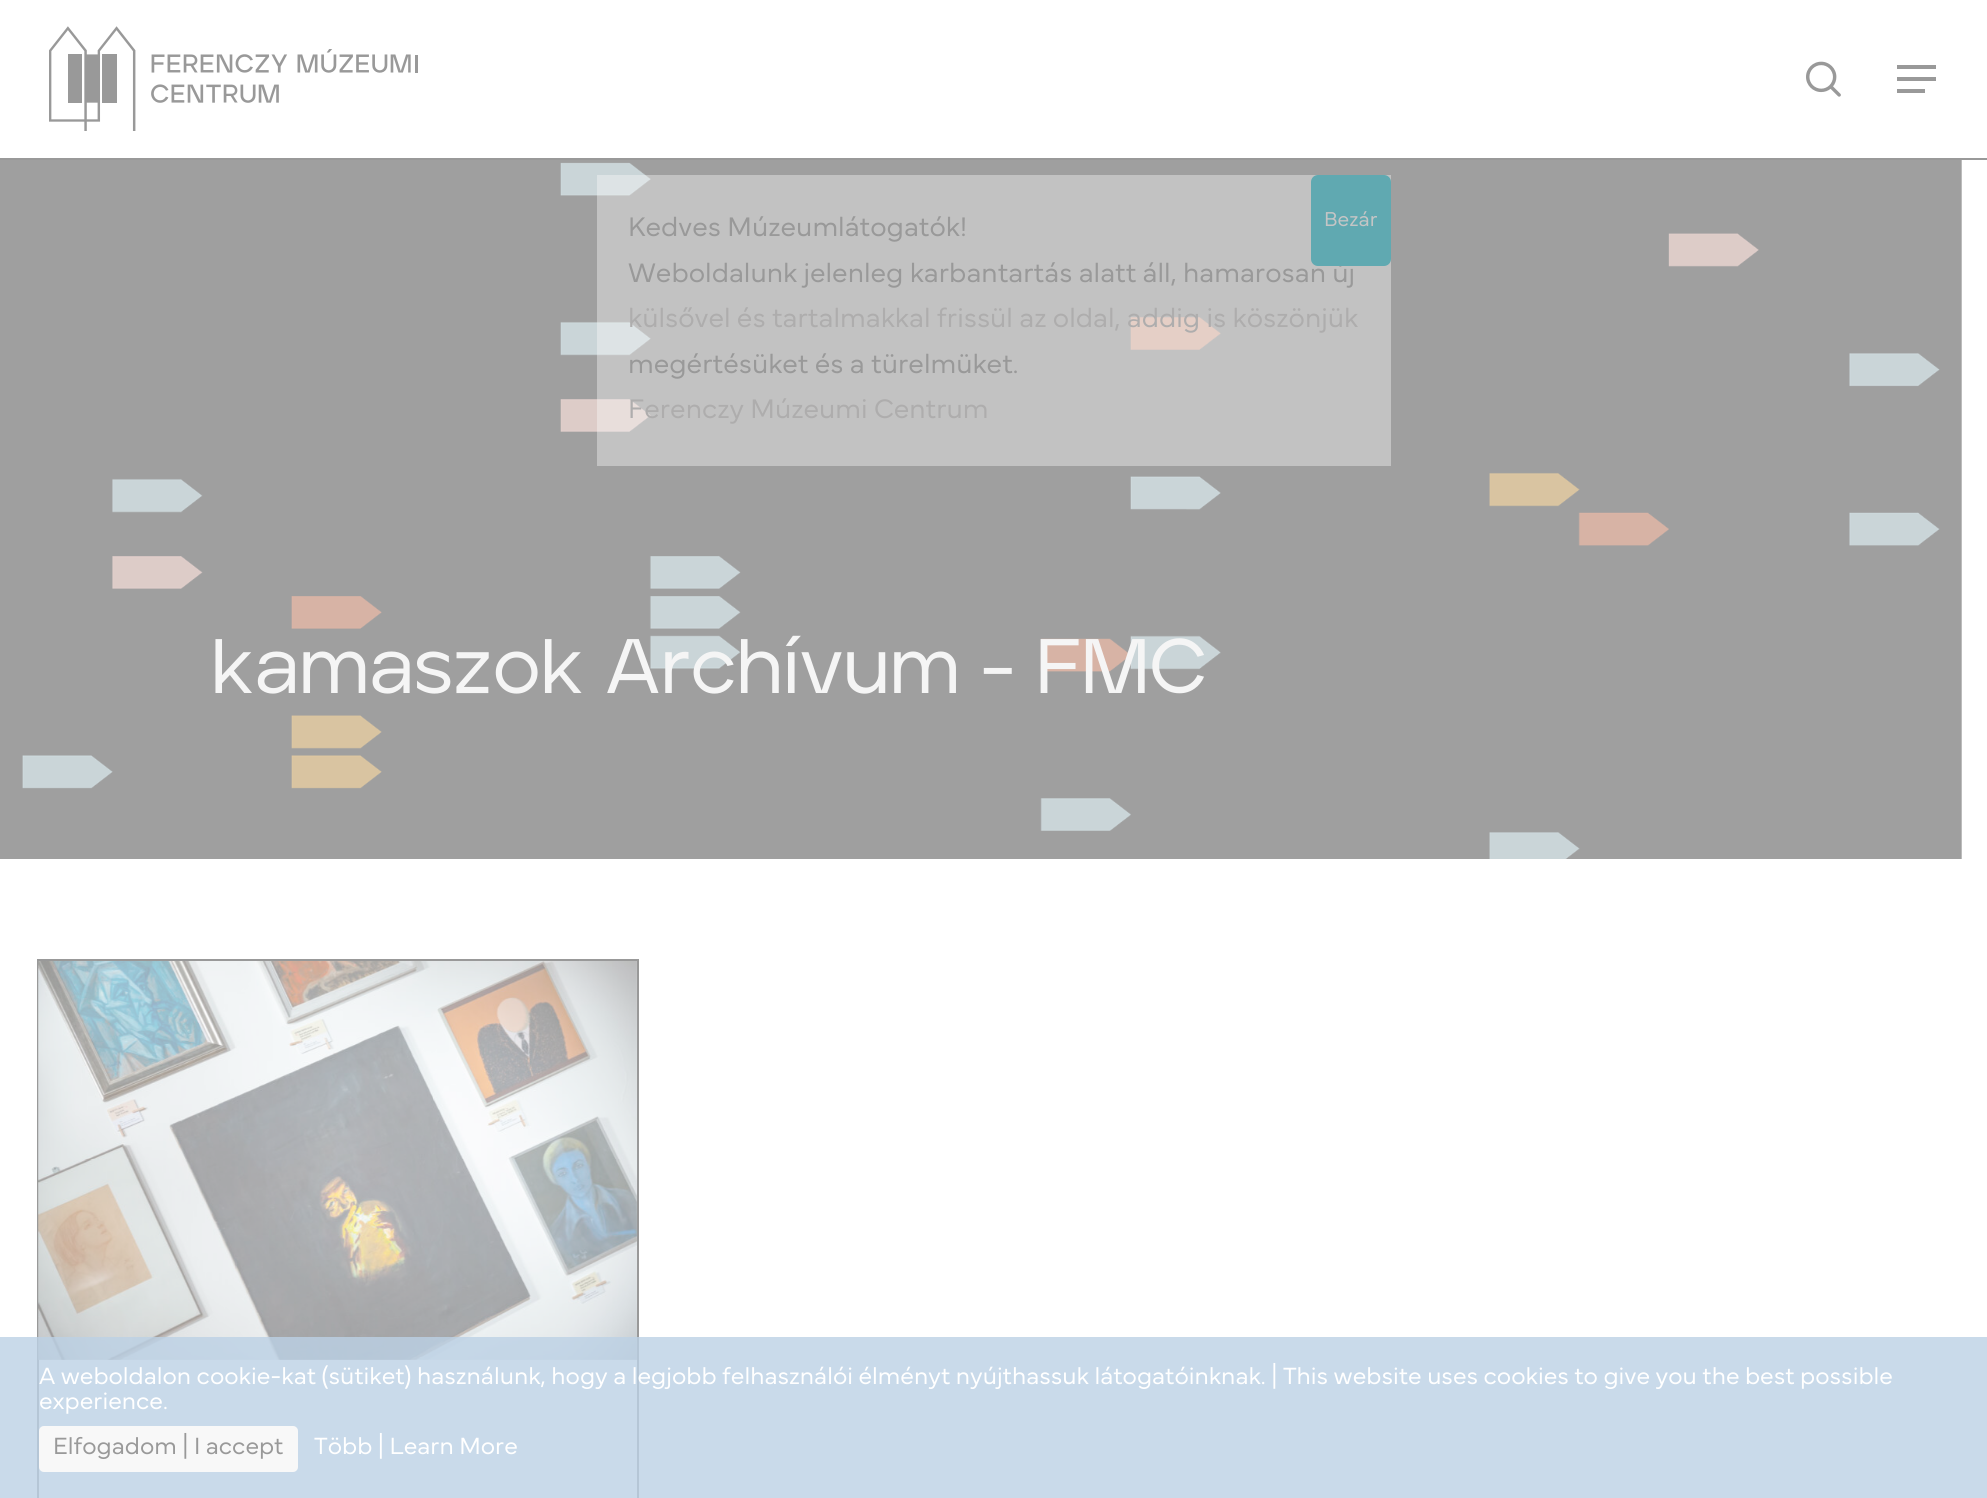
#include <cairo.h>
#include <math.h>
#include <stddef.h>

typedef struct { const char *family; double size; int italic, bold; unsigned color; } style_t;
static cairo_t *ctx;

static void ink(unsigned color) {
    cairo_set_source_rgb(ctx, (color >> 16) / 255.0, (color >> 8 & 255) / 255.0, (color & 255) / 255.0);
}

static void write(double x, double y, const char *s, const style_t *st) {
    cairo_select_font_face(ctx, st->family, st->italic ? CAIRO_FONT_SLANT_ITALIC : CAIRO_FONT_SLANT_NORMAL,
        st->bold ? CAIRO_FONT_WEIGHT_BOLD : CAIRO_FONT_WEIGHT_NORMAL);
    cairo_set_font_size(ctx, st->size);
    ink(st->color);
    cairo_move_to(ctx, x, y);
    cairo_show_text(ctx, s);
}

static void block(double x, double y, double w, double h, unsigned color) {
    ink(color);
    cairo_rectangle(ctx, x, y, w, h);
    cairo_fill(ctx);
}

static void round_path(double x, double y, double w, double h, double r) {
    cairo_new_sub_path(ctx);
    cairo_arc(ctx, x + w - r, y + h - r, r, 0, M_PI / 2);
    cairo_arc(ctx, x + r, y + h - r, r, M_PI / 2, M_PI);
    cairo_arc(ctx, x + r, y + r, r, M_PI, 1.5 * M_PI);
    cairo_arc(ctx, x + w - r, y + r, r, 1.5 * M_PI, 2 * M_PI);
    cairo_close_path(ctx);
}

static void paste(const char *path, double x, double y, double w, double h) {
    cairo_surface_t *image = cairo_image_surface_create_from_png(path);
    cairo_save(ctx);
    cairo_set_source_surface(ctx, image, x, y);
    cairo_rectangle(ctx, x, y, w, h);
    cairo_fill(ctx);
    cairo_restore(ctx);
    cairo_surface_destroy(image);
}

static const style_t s1 = {"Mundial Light", 28, 0, 0, 0x999999};
static const style_t s2 = {"Mundial Light", 21, 0, 0, 0xc5c5c5};
static const style_t s3 = {"Mundial Light", 28, 0, 0, 0xaeadad};
static const style_t s4 = {"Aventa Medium", 77, 0, 0, 0xf5f5f5};
static const style_t s5 = {"Mundial Light", 24.5, 0, 0, 0xffffff};
static const style_t s6 = {"Mundial Light", 24.5, 0, 0, 0x999999};

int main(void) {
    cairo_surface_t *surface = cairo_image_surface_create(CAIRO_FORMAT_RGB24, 1987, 1498);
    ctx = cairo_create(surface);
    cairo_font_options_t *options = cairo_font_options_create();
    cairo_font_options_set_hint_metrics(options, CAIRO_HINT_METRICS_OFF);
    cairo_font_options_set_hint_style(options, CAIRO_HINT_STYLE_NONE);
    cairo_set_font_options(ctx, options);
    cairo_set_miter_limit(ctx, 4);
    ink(0xffffff);
    cairo_paint(ctx);
    block(1961, 160, 1, 699, 0xe2e2e2);
    paste("pic3.png", 0, 160, 1962, 699);
    cairo_set_source_rgba(ctx, 0.976, 0.976, 0.976, 0.39);
    cairo_rectangle(ctx, 597, 175, 794, 291);
    cairo_fill(ctx);
    write(628, 282, "Weboldalunk jelenleg karbantartás alatt áll, hamarosan új", &s1);
    ink(0x60a9b1);
    round_path(1311, 175, 80, 91, 7);
    cairo_fill(ctx);
    write(1324, 226, "Bezár", &s2);
    write(628, 236, "Kedves Múzeumlátogatók!", &s1);
    write(628, 327, "külsővel és tartalmakkal frissül az oldal, addig is köszönjük", &s3);
    write(628, 373, "megértésüket és a türelmüket.", &s1);
    write(628, 418, "Ferenczy Múzeumi Centrum", &s3);
    block(0, 158, 1987, 2, 0x999999);
    paste("pic1.png", 49, 26, 369, 105);
    paste("pic2.png", 1806, 61, 35, 36);
    block(1897, 65, 39, 4, 0x999999);
    block(1897, 89, 28, 4, 0x999999);
    block(1897, 77, 39, 4, 0x999999);
    write(211, 693, "kamaszok Archívum - FMC", &s4);
    cairo_rectangle(ctx, 38, 960, 600, 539);
    ink(0x999999);
    cairo_stroke(ctx);
    paste("pic4.png", 38, 961, 599, 399);
    cairo_set_source_rgba(ctx, 0.733, 0.82, 0.898, 0.8);
    cairo_rectangle(ctx, 0, 1337, 1987, 161);
    cairo_fill(ctx);
    write(39, 1384, "A weboldalon cookie-kat (sütiket) használunk, hogy a legjobb felhasználói élményt nyújthassuk látogatóinknak. | This website uses cookies to give you the best possible", &s5);
    write(39, 1409, "experience.", &s5);
    ink(0xf8f8f8);
    round_path(39, 1426, 259, 46, 5);
    cairo_fill(ctx);
    write(53, 1454, "Elfogadom | I accept", &s6);
    write(314, 1454, "Több | Learn More", &s5);
    cairo_surface_write_to_png(surface, "screenshot.png");
    cairo_font_options_destroy(options);
    cairo_destroy(ctx);
    cairo_surface_destroy(surface);
    return 0;
}
